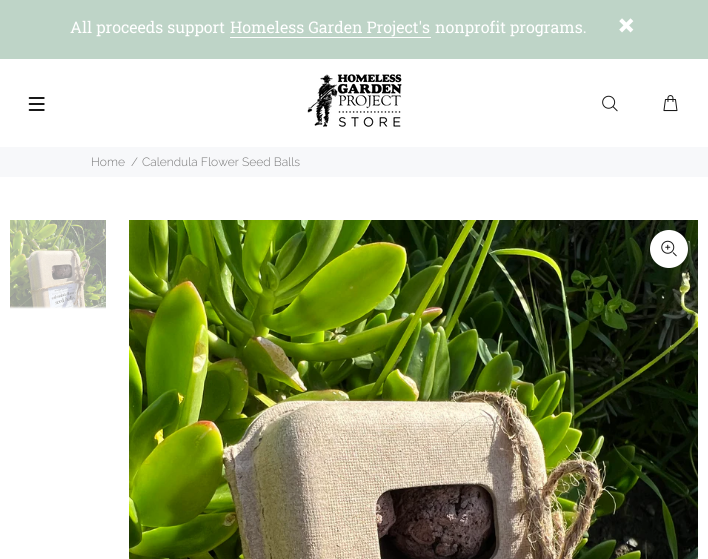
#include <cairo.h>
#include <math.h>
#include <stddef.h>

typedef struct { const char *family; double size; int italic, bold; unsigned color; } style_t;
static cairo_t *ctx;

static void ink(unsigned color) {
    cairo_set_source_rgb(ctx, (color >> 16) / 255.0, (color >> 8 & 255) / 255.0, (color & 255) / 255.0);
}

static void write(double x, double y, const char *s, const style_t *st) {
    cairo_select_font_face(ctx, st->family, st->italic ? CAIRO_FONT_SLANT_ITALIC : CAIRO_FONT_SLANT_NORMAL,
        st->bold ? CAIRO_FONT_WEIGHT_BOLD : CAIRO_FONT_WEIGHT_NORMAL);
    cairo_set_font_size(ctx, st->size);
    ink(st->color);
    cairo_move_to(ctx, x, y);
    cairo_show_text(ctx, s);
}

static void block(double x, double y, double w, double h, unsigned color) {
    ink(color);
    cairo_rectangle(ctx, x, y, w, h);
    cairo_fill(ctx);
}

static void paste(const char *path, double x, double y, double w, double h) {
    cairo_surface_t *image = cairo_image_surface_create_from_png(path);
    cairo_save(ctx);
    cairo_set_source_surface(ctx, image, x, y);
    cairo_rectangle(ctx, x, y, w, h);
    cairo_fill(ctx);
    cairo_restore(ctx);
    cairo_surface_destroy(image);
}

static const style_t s1 = {"Roboto Slab", 16, 0, 0, 0xffffff};
static const style_t s2 = {"Raleway Light", 12, 0, 0, 0x777777};

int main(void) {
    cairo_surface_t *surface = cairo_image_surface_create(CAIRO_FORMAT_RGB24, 708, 559);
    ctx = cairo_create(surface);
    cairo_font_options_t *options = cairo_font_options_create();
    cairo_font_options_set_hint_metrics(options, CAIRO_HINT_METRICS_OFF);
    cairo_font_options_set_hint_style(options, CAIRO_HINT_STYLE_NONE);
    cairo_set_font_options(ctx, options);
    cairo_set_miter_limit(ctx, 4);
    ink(0xffffff);
    cairo_paint(ctx);
    block(0, 0, 708, 59, 0xbed4c7);
    write(70, 33, "All proceeds support", &s1);
    write(230, 33, "Homeless Garden Project's", &s1);
    block(230, 37, 201, 1, 0xffffff);
    write(435, 33, "nonprofit programs.", &s1);
    paste("pic1.png", 619, 18, 15, 15);
    paste("pic2.png", 28, 97, 17, 14);
    paste("pic3.png", 307, 74, 95, 53);
    paste("pic4.png", 602, 95, 16, 17);
    paste("pic5.png", 663, 95, 15, 17);
    block(0, 147, 708, 30, 0xf7f8fa);
    write(91, 166, "Home", &s2);
    write(131, 166, "/", &s2);
    write(142, 166, "Calendula Flower Seed Balls", &s2);
    paste("pic6.png", 10, 220, 96, 100);
    paste("pic7.png", 129, 220, 569, 339);
    ink(0xffffff);
    cairo_arc(ctx, 669, 249, 19, 0, 2 * M_PI);
    cairo_fill(ctx);
    paste("pic8.png", 661, 240, 16, 17);
    cairo_surface_write_to_png(surface, "screenshot.png");
    cairo_font_options_destroy(options);
    cairo_destroy(ctx);
    cairo_surface_destroy(surface);
    return 0;
}
